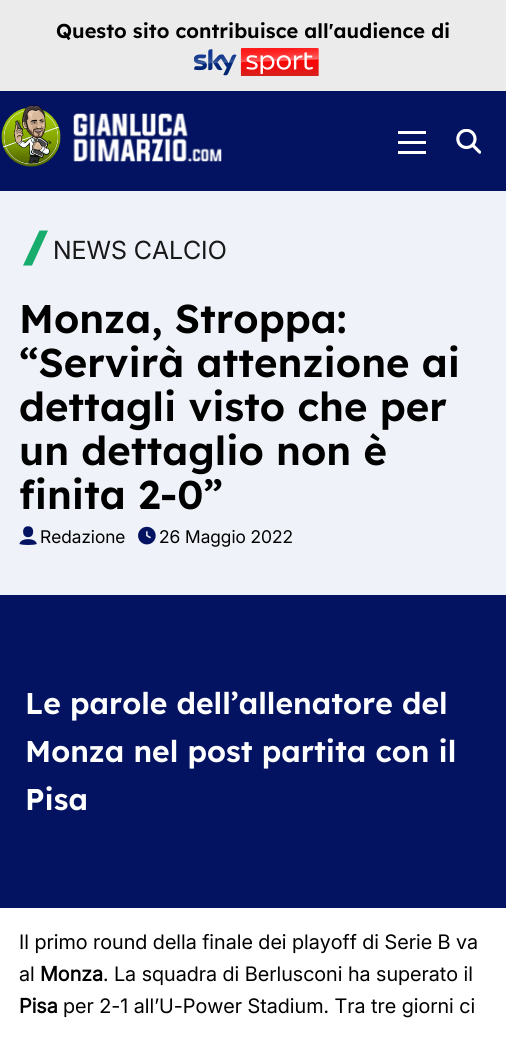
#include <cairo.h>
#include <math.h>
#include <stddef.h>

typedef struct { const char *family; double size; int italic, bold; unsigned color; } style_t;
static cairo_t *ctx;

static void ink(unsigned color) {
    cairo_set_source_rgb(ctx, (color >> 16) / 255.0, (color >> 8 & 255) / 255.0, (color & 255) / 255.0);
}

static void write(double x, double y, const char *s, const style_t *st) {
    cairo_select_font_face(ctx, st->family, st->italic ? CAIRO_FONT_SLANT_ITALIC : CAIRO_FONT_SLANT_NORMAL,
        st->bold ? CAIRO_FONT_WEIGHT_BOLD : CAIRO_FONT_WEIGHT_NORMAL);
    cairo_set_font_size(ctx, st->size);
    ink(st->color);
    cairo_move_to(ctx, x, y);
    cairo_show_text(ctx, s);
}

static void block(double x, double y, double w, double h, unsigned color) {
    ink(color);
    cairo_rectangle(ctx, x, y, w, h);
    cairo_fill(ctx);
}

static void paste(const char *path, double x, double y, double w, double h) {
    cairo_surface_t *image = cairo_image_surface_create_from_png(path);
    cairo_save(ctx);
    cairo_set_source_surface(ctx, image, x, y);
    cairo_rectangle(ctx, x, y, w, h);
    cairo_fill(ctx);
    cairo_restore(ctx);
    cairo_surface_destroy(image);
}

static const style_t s1 = {"Lexend SemiBold", 20, 0, 0, 0x000000};
static const style_t s2 = {"Inter", 25, 0, 0, 0x181819};
static const style_t s3 = {"Lexend SemiBold", 40, 0, 0, 0x000000};
static const style_t s4 = {"Inter", 17.5, 0, 0, 0x000000};
static const style_t s5 = {"Lexend SemiBold", 30, 0, 0, 0xffffff};
static const style_t s6 = {"Inter", 20, 0, 0, 0x000000};
static const style_t s7 = {"Inter", 20, 0, 1, 0x000000};

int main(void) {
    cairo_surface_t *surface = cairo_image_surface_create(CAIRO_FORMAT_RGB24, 506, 1037);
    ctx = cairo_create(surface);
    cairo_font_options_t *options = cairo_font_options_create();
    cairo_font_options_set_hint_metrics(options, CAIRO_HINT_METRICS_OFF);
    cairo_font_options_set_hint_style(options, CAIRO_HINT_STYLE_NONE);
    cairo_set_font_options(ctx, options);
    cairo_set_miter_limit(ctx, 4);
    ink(0xffffff);
    cairo_paint(ctx);
    block(0, 0, 506, 91, 0xebebeb);
    write(56, 38, "Questo sito contribuisce all'audience di", &s1);
    paste("pic1.png", 194, 48, 125, 28);
    block(0, 91, 506, 100, 0x031361);
    paste("pic2.png", 1, 105, 60, 62);
    paste("pic3.png", 73, 113, 149, 49);
    block(398, 141, 28, 3, 0xffffff);
    block(398, 131, 28, 3, 0xffffff);
    block(398, 151, 28, 3, 0xffffff);
    paste("pic4.png", 456, 129, 25, 25);
    block(0, 191, 506, 404, 0xeff3f9);
    ink(0x18ad6d);
    cairo_new_path(ctx);
    cairo_move_to(ctx, 39.5, 230.5);
    cairo_line_to(ctx, 48, 230.5);
    cairo_line_to(ctx, 32, 265.5);
    cairo_line_to(ctx, 23, 265.5);
    cairo_close_path(ctx);
    cairo_fill(ctx);
    write(53, 259, "NEWS CALCIO", &s2);
    write(19, 333, "Monza, Stroppa:", &s3);
    write(19, 377, "“Servirà attenzione ai", &s3);
    write(19, 421, "dettagli visto che per", &s3);
    write(19, 465, "un dettaglio non è", &s3);
    write(19, 509, "finita 2-0”", &s3);
    paste("pic5.png", 19, 526, 18, 19);
    write(40, 543, "Redazione", &s4);
    paste("pic6.png", 138, 526, 18, 19);
    write(159, 543, "26 Maggio 2022", &s4);
    block(0, 595, 506, 313, 0x031361);
    write(25, 714, "Le parole dell’allenatore del", &s5);
    write(25, 762, "Monza nel post partita con il", &s5);
    write(25, 810, "Pisa", &s5);
    write(19, 949, "Il primo round della finale dei playoff di Serie B va", &s6);
    write(19, 981, "al", &s6);
    write(40, 981, "Monza", &s7);
    write(103, 981, ". La squadra di Berlusconi ha superato il", &s6);
    write(19, 1013, "Pisa", &s7);
    write(63, 1013, "per 2-1 all’U-Power Stadium. Tra tre giorni ci", &s6);
    cairo_surface_write_to_png(surface, "screenshot.png");
    cairo_font_options_destroy(options);
    cairo_destroy(ctx);
    cairo_surface_destroy(surface);
    return 0;
}
